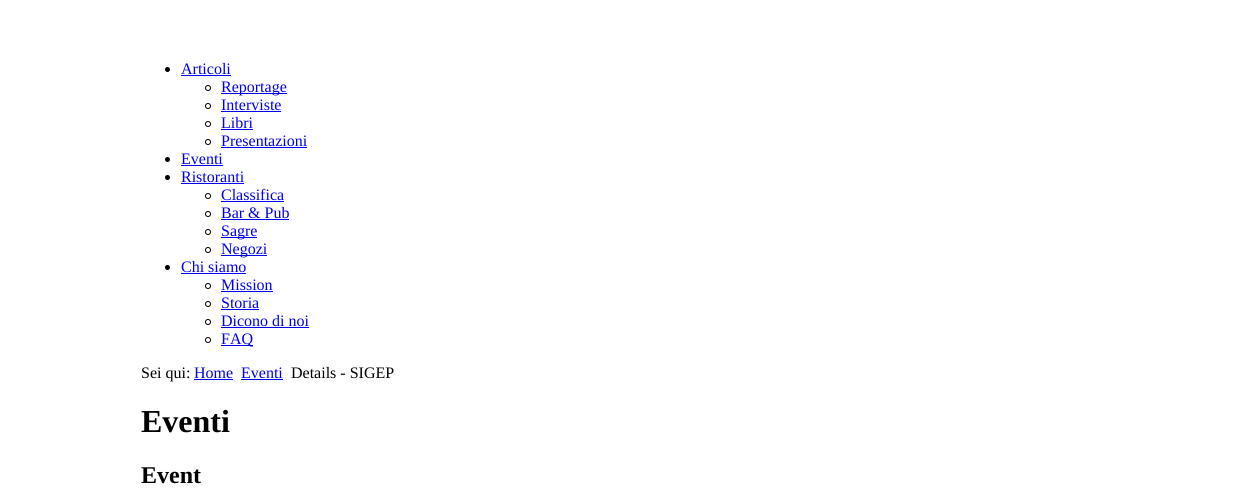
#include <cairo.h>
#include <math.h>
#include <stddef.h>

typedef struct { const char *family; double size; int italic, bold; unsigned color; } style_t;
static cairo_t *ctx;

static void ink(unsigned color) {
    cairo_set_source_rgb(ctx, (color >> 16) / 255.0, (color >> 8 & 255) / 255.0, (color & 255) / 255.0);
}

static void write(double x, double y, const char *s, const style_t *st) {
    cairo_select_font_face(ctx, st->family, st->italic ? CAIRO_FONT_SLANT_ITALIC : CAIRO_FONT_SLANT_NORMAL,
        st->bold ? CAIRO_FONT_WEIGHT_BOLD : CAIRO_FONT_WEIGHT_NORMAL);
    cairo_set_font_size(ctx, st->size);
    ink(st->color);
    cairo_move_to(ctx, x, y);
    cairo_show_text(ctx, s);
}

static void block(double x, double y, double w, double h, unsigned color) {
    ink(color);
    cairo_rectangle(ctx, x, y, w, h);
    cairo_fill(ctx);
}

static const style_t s1 = {"Liberation Serif", 16, 0, 0, 0x0000ee};
static const style_t s2 = {"Liberation Serif", 16, 0, 0, 0x000000};
static const style_t s3 = {"Liberation Serif", 32, 0, 1, 0x000000};
static const style_t s4 = {"Liberation Serif", 24, 0, 1, 0x000000};

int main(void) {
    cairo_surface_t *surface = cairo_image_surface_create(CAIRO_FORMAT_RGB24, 1242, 496);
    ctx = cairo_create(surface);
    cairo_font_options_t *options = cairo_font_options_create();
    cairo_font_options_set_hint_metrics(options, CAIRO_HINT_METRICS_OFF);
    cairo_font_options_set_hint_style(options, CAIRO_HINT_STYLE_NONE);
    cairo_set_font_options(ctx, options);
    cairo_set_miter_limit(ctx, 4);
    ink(0xffffff);
    cairo_paint(ctx);
    ink(0x000000);
    cairo_arc(ctx, 167.5, 69.5, 2.5, 0, 2 * M_PI);
    cairo_fill(ctx);
    write(181, 74, "Articoli", &s1);
    block(181, 75, 50, 1, 0x0000ee);
    cairo_new_path(ctx);
    cairo_arc(ctx, 208, 88, 2.5, 0, 2 * M_PI);
    ink(0x000000);
    cairo_set_line_width(ctx, 1);
    cairo_stroke(ctx);
    block(221, 93, 66, 1, 0x0000ee);
    write(221, 92, "Reportage", &s1);
    cairo_new_path(ctx);
    cairo_arc(ctx, 208, 106, 2.5, 0, 2 * M_PI);
    ink(0x000000);
    cairo_stroke(ctx);
    write(221, 110, "Interviste", &s1);
    block(221, 111, 60, 1, 0x0000ee);
    cairo_new_path(ctx);
    cairo_arc(ctx, 208, 124, 2.5, 0, 2 * M_PI);
    ink(0x000000);
    cairo_stroke(ctx);
    write(221, 128, "Libri", &s1);
    block(221, 129, 32, 1, 0x0000ee);
    cairo_new_path(ctx);
    cairo_arc(ctx, 208, 142, 2.5, 0, 2 * M_PI);
    ink(0x000000);
    cairo_stroke(ctx);
    write(221, 146, "Presentazioni", &s1);
    block(221, 147, 86, 1, 0x0000ee);
    ink(0x000000);
    cairo_new_path(ctx);
    cairo_arc(ctx, 167.5, 159.5, 2.5, 0, 2 * M_PI);
    cairo_fill(ctx);
    write(181, 164, "Eventi", &s1);
    block(181, 165, 42, 1, 0x0000ee);
    ink(0x000000);
    cairo_new_path(ctx);
    cairo_arc(ctx, 167.5, 177.5, 2.5, 0, 2 * M_PI);
    cairo_fill(ctx);
    write(181, 182, "Ristoranti", &s1);
    block(181, 183, 63, 1, 0x0000ee);
    cairo_new_path(ctx);
    cairo_arc(ctx, 208, 196, 2.5, 0, 2 * M_PI);
    ink(0x000000);
    cairo_stroke(ctx);
    write(221, 200, "Classifica", &s1);
    block(221, 201, 63, 1, 0x0000ee);
    cairo_new_path(ctx);
    cairo_arc(ctx, 208, 214, 2.5, 0, 2 * M_PI);
    ink(0x000000);
    cairo_stroke(ctx);
    write(221, 218, "Bar & Pub", &s1);
    block(221, 219, 68, 1, 0x0000ee);
    cairo_new_path(ctx);
    cairo_arc(ctx, 208, 232, 2.5, 0, 2 * M_PI);
    ink(0x000000);
    cairo_stroke(ctx);
    block(221, 237, 36, 1, 0x0000ee);
    write(221, 236, "Sagre", &s1);
    cairo_new_path(ctx);
    cairo_arc(ctx, 208, 250, 2.5, 0, 2 * M_PI);
    ink(0x000000);
    cairo_stroke(ctx);
    block(221, 255, 46, 1, 0x0000ee);
    write(221, 254, "Negozi", &s1);
    ink(0x000000);
    cairo_new_path(ctx);
    cairo_arc(ctx, 167.5, 267.5, 2.5, 0, 2 * M_PI);
    cairo_fill(ctx);
    write(181, 272, "Chi siamo", &s1);
    block(181, 273, 65, 1, 0x0000ee);
    cairo_new_path(ctx);
    cairo_arc(ctx, 208, 286, 2.5, 0, 2 * M_PI);
    ink(0x000000);
    cairo_stroke(ctx);
    write(221, 290, "Mission", &s1);
    block(221, 291, 52, 1, 0x0000ee);
    cairo_new_path(ctx);
    cairo_arc(ctx, 208, 304, 2.5, 0, 2 * M_PI);
    ink(0x000000);
    cairo_stroke(ctx);
    write(221, 308, "Storia", &s1);
    block(221, 309, 38, 1, 0x0000ee);
    cairo_new_path(ctx);
    cairo_arc(ctx, 208, 322, 2.5, 0, 2 * M_PI);
    ink(0x000000);
    cairo_stroke(ctx);
    write(221, 326, "Dicono di noi", &s1);
    block(221, 327, 88, 1, 0x0000ee);
    cairo_new_path(ctx);
    cairo_arc(ctx, 208, 340, 2.5, 0, 2 * M_PI);
    ink(0x000000);
    cairo_stroke(ctx);
    block(221, 345, 32, 1, 0x0000ee);
    write(221, 344, "FAQ", &s1);
    write(141, 378, "Sei qui:", &s2);
    write(194, 378, "Home", &s1);
    block(194, 379, 39, 1, 0x0000ee);
    write(241, 378, "Eventi", &s1);
    block(241, 379, 42, 1, 0x0000ee);
    write(291, 378, "Details - SIGEP", &s2);
    write(141, 432, "Eventi", &s3);
    write(141, 483, "Event", &s4);
    cairo_surface_write_to_png(surface, "screenshot.png");
    cairo_font_options_destroy(options);
    cairo_destroy(ctx);
    cairo_surface_destroy(surface);
    return 0;
}
